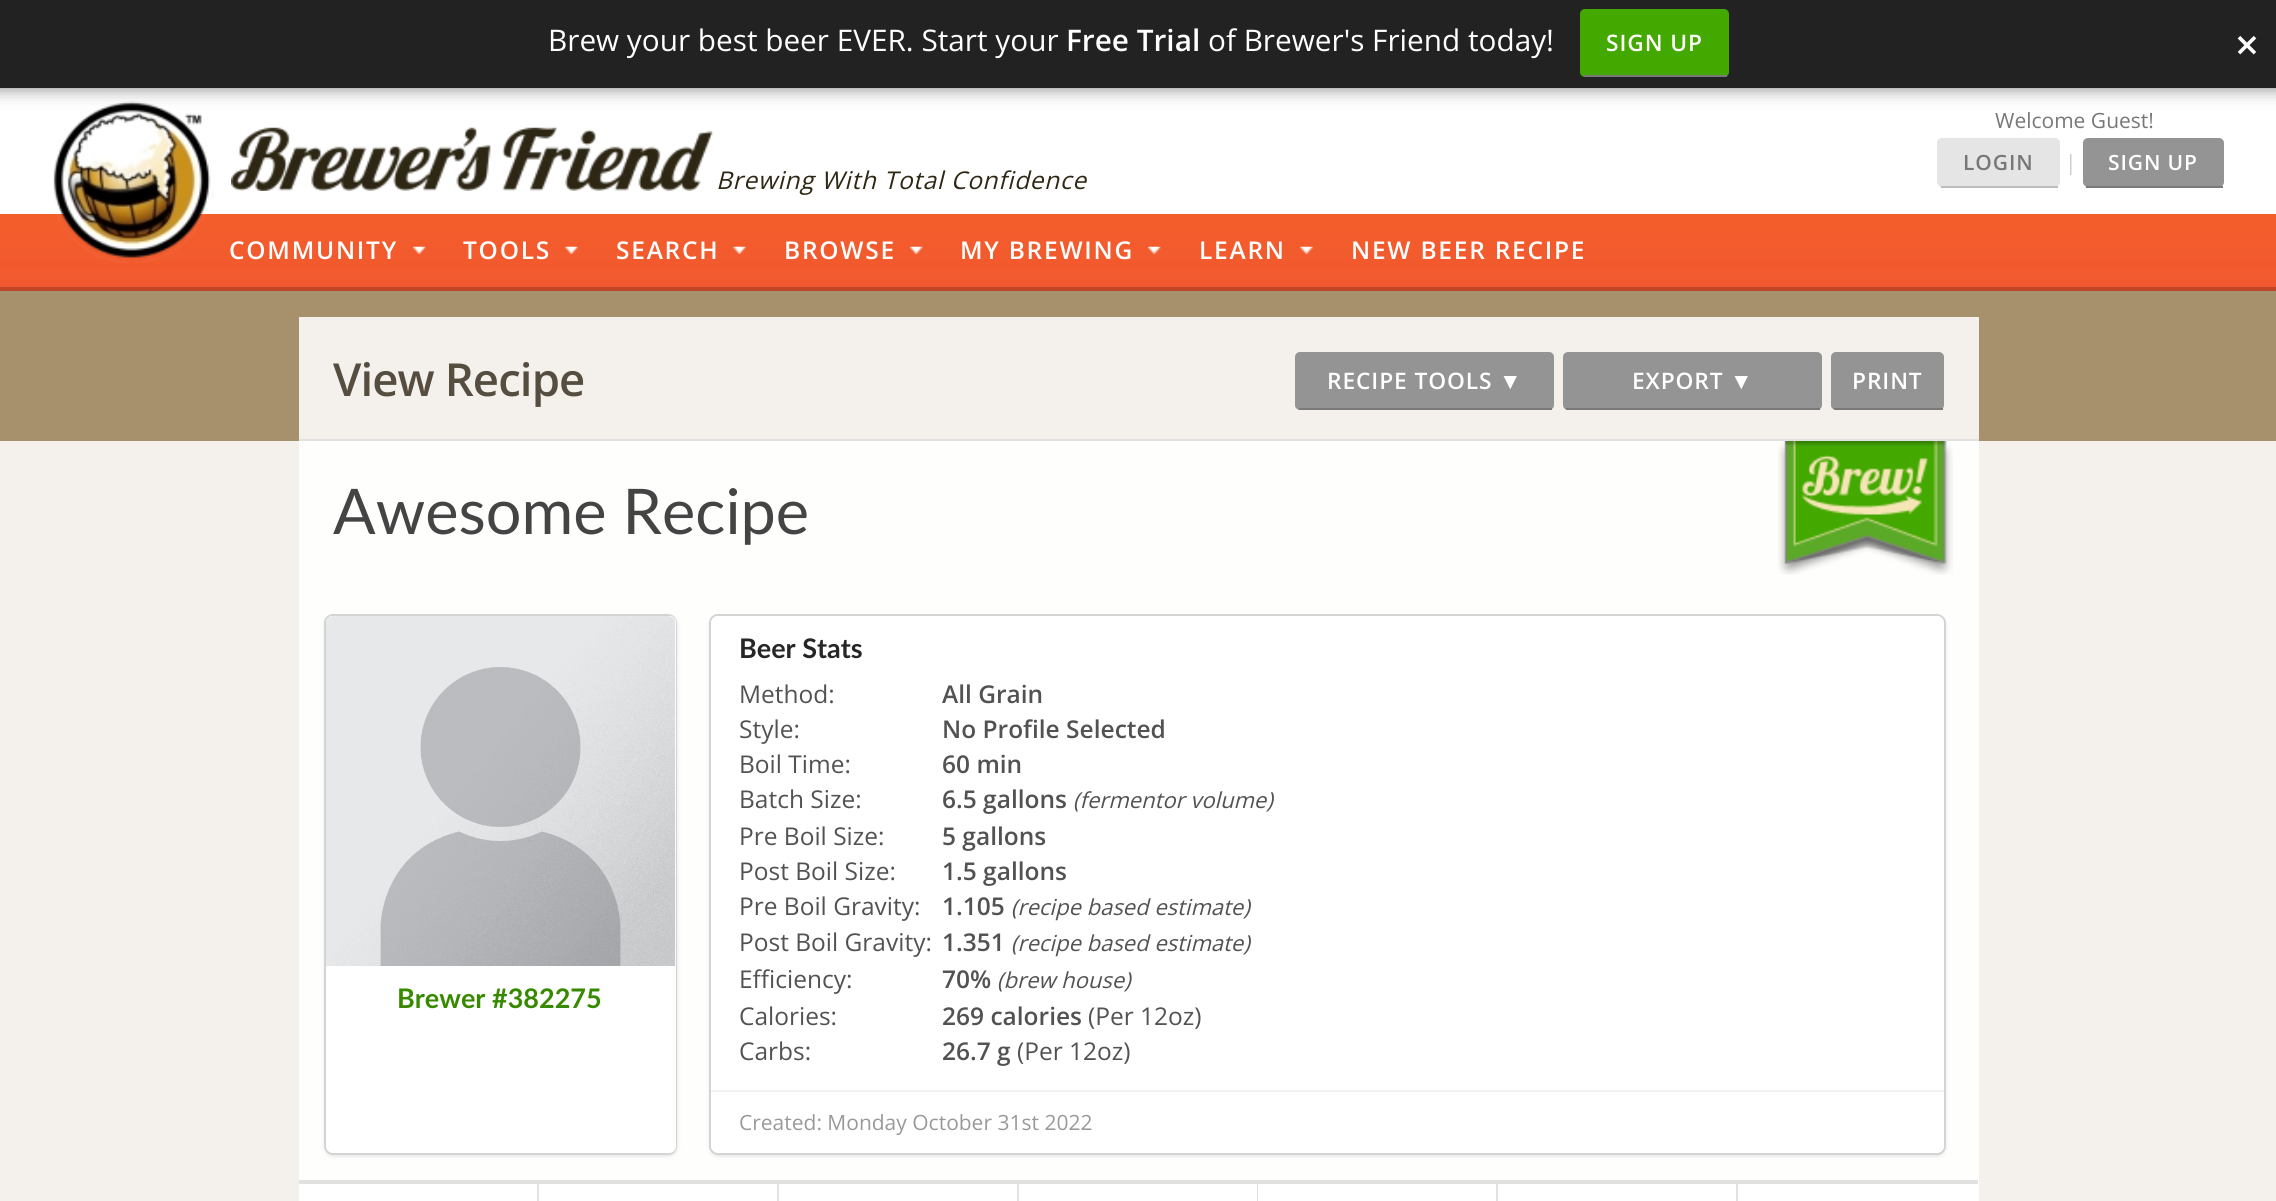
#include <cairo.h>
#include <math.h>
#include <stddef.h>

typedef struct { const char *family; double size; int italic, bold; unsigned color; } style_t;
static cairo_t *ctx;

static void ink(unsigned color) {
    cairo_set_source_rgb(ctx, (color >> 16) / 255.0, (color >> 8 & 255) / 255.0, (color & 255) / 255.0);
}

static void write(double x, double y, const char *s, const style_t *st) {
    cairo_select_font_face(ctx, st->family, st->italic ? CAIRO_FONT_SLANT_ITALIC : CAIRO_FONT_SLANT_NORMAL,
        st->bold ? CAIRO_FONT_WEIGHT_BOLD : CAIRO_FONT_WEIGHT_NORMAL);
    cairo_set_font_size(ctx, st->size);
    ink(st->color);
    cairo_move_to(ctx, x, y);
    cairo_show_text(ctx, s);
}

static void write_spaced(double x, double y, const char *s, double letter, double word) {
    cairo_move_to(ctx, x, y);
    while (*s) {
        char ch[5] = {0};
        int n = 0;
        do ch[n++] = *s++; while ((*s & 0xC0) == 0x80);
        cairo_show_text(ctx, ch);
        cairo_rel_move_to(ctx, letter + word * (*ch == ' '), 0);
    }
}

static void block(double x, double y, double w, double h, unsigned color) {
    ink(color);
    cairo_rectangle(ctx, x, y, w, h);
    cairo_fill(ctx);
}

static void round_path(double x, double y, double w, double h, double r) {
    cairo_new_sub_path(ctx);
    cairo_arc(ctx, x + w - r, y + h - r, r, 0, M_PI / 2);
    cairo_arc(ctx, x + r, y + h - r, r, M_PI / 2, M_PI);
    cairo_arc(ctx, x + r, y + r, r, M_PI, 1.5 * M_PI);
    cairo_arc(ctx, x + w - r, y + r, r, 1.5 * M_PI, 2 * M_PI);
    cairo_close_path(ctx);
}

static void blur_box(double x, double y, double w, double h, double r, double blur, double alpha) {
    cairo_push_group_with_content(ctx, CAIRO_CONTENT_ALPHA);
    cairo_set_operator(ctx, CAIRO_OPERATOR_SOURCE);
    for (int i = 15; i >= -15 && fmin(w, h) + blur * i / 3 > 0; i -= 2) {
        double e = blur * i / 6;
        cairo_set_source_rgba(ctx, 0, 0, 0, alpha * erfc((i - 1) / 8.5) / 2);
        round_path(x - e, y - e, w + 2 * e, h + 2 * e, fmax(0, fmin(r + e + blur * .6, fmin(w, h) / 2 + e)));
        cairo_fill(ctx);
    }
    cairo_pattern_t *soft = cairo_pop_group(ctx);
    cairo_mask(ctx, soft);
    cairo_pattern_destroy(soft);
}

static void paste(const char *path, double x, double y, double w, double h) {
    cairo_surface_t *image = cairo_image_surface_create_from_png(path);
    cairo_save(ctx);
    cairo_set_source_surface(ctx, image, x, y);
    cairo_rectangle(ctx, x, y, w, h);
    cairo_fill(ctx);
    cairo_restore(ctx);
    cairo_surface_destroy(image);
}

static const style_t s1 = {"Open Sans", 29.75, 0, 0, 0xffffff};
static const style_t s2 = {"Open Sans SemiBold", 29.75, 0, 0, 0xffffff};
static const style_t s3 = {"Open Sans SemiBold", 42, 0, 0, 0xffffff};
static const style_t s4 = {"Open Sans", 21, 0, 0, 0x777777};
static const style_t s5 = {"Open Sans", 21, 0, 0, 0xcbcbcb};
static const style_t s6 = {"Lato", 63, 0, 0, 0x444444};
static const style_t s7 = {"Lato", 27, 0, 1, 0x378a00};
static const style_t s8 = {"Lato", 27, 0, 1, 0x262626};
static const style_t s9 = {"Open Sans", 24.5, 0, 0, 0x525252};
static const style_t s10 = {"Open Sans SemiBold", 24.5, 0, 0, 0x525252};
static const style_t s11 = {"Open Sans", 22, 1, 0, 0x525252};
static const style_t s12 = {"Open Sans", 21, 0, 0, 0x999999};

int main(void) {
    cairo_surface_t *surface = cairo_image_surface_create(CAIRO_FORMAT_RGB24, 2276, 1201);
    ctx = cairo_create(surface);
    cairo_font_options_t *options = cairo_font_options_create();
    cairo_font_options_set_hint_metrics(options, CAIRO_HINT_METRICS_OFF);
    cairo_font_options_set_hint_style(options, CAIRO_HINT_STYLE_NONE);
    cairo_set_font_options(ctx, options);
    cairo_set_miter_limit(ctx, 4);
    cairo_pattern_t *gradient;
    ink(0xf4f1ec);
    cairo_paint(ctx);
    block(0, 88, 2276, 126, 0xffffff);
    gradient = cairo_pattern_create_linear(1138, 213, 1138, 287);
    cairo_pattern_add_color_stop_rgba(gradient, 0, 0.953, 0.365, 0.165, 1);
    cairo_pattern_add_color_stop_rgba(gradient, 1, 0.949, 0.349, 0.188, 1);
    cairo_set_source(ctx, gradient);
    cairo_pattern_destroy(gradient);
    cairo_rectangle(ctx, 0, 214, 2276, 73);
    cairo_fill(ctx);
    paste("pic1.png", 53, 101, 161, 162);
    ink(0x000000);
    blur_box(-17, -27, 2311, 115, 0, 9, 0.5);
    block(0, 0, 2276, 88, 0x222222);
    write(548, 51, "Brew your best beer EVER. Start your", &s1);
    write(1066, 51, "Free Trial", &s2);
    write(1208, 51, "of Brewer's Friend today!", &s1);
    ink(0x43a800);
    round_path(1580, 9, 149, 68, 5);
    cairo_fill(ctx);
    block(1584, 75, 143, 2, 0x797979);
    cairo_select_font_face(ctx, "Open Sans SemiBold", CAIRO_FONT_SLANT_NORMAL, CAIRO_FONT_WEIGHT_NORMAL);
    cairo_set_font_size(ctx, 22.75);
    ink(0xffffff);
    write_spaced(1606, 51, "SIGN UP", 0.9, 0);
    write(2235, 60, "×", &s3);
    write(1995, 128, "Welcome Guest!", &s4);
    ink(0xe5e5e5);
    round_path(1937, 138, 123, 49, 5);
    cairo_fill(ctx);
    block(1941, 186, 117, 2, 0xbcbcbc);
    cairo_select_font_face(ctx, "Open Sans SemiBold", CAIRO_FONT_SLANT_NORMAL, CAIRO_FONT_WEIGHT_NORMAL);
    ink(0x777777);
    write_spaced(1963, 170, "LOGIN", 0.9, 0);
    write(2065, 170, "|", &s5);
    ink(0x949494);
    round_path(2083, 138, 141, 49, 5);
    cairo_fill(ctx);
    block(2086, 186, 137, 2, 0x797979);
    cairo_select_font_face(ctx, "Open Sans SemiBold", CAIRO_FONT_SLANT_NORMAL, CAIRO_FONT_WEIGHT_NORMAL);
    ink(0xffffff);
    write_spaced(2108, 170, "SIGN UP", 0.9, 0);
    paste("pic2.png", 231, 127, 482, 64);
    cairo_select_font_face(ctx, "Open Sans", CAIRO_FONT_SLANT_ITALIC, CAIRO_FONT_WEIGHT_NORMAL);
    cairo_set_font_size(ctx, 24.5);
    ink(0x2e2714);
    write_spaced(716, 189, "Brewing With Total Confidence", 0.7, 0);
    block(0, 287, 2276, 4, 0xbf4626);
    paste("pic3.png", 413, 246, 13, 8);
    cairo_select_font_face(ctx, "Open Sans SemiBold", CAIRO_FONT_SLANT_NORMAL, CAIRO_FONT_WEIGHT_NORMAL);
    ink(0xffffff);
    write_spaced(229, 259, "COMMUNITY", 1.75, 0);
    paste("pic4.png", 565, 246, 13, 8);
    write_spaced(463, 259, "TOOLS", 1.75, 0);
    paste("pic5.png", 733, 246, 13, 8);
    write_spaced(616, 259, "SEARCH", 1.75, 0);
    paste("pic3.png", 910, 246, 13, 8);
    write_spaced(784, 259, "BROWSE", 1.75, 0);
    paste("pic3.png", 1148, 246, 13, 8);
    write_spaced(960, 259, "MY BREWING", 1.75, 0);
    paste("pic5.png", 1300, 246, 13, 8);
    write_spaced(1199, 259, "LEARN", 1.75, 0);
    write_spaced(1351, 259, "NEW BEER RECIPE", 1.75, 0);
    block(0, 291, 2276, 150, 0xa7916d);
    block(299, 317, 1680, 122, 0xf4f1ec);
    block(299, 439, 1680, 2, 0xe1e1e1);
    cairo_set_font_size(ctx, 45.5);
    ink(0x554d3f);
    write_spaced(333, 396, "View Recipe", -0.9, 0);
    ink(0x949494);
    round_path(1295, 352, 259, 58, 5);
    cairo_fill(ctx);
    block(1299, 408, 253, 2, 0x797979);
    cairo_set_font_size(ctx, 22.75);
    ink(0xffffff);
    write_spaced(1327, 389, "RECIPE TOOLS", 0.9, 0);
    cairo_select_font_face(ctx, "Liberation Sans", CAIRO_FONT_SLANT_NORMAL, CAIRO_FONT_WEIGHT_BOLD);
    write_spaced(1499, 389, "▼", 0.9, 0);
    ink(0x949494);
    round_path(1563, 352, 259, 58, 5);
    cairo_fill(ctx);
    block(1566, 408, 254, 2, 0x797979);
    cairo_select_font_face(ctx, "Open Sans SemiBold", CAIRO_FONT_SLANT_NORMAL, CAIRO_FONT_WEIGHT_NORMAL);
    ink(0xffffff);
    write_spaced(1632, 389, "EXPORT", 0.9, 0);
    cairo_select_font_face(ctx, "Liberation Sans", CAIRO_FONT_SLANT_NORMAL, CAIRO_FONT_WEIGHT_BOLD);
    write_spaced(1730, 389, "▼", 0.9, 0);
    ink(0x949494);
    round_path(1831, 352, 113, 58, 5);
    cairo_fill(ctx);
    block(1834, 408, 109, 2, 0x797979);
    cairo_select_font_face(ctx, "Open Sans SemiBold", CAIRO_FONT_SLANT_NORMAL, CAIRO_FONT_WEIGHT_NORMAL);
    ink(0xffffff);
    write_spaced(1852, 389, "PRINT", 0.9, 0);
    block(299, 441, 1680, 739, 0xfefefd);
    write(333, 534, "Awesome Recipe", &s6);
    paste("pic6.png", 1778, 441, 175, 134);
    round_path(325, 615, 351, 539, 8);
    ink(0xd4d4d5);
    cairo_stroke(ctx);
    ink(0xd4d4d5);
    blur_box(326, 618, 350, 537, 7, 2.5, 1);
    ink(0xffffff);
    round_path(326, 616, 350, 537, 7);
    cairo_fill(ctx);
    cairo_new_path(ctx);
    cairo_move_to(ctx, 333, 616);
    cairo_line_to(ctx, 669, 616);
    cairo_curve_to(ctx, 673, 616, 676, 619, 676, 623);
    cairo_line_to(ctx, 676, 966);
    cairo_line_to(ctx, 326, 966);
    cairo_line_to(ctx, 326, 623);
    cairo_curve_to(ctx, 326, 619, 329, 616, 333, 616);
    cairo_close_path(ctx);
    cairo_fill(ctx);
    paste("pic7.png", 326, 616, 350, 350);
    write(397, 1008, "Brewer #382275", &s7);
    round_path(710, 615, 1235, 539, 8);
    ink(0xd4d4d5);
    cairo_stroke(ctx);
    ink(0xd4d4d5);
    blur_box(711, 618, 1233, 537, 7, 2.5, 1);
    ink(0xffffff);
    round_path(711, 616, 1233, 537, 7);
    cairo_fill(ctx);
    write(739, 658, "Beer Stats", &s8);
    write(739, 703, "Method:", &s9);
    write(942, 703, "All Grain", &s10);
    write(739, 738, "Style:", &s9);
    write(942, 738, "No Profile Selected", &s10);
    write(739, 773, "Boil Time:", &s9);
    write(942, 773, "60 min", &s10);
    write(739, 808, "Batch Size:", &s9);
    write(942, 808, "6.5 gallons", &s10);
    write(1073, 808, "(fermentor volume)", &s11);
    write(739, 845, "Pre Boil Size:", &s9);
    write(942, 845, "5 gallons", &s10);
    write(739, 880, "Post Boil Size:", &s9);
    write(942, 880, "1.5 gallons", &s10);
    write(739, 915, "Pre Boil Gravity:", &s9);
    write(942, 915, "1.105", &s10);
    write(1011, 915, "(recipe based estimate)", &s11);
    write(739, 951, "Post Boil Gravity:", &s9);
    write(942, 951, "1.351", &s10);
    write(1011, 951, "(recipe based estimate)", &s11);
    write(739, 988, "Efficiency:", &s9);
    write(942, 988, "70%", &s10);
    write(997, 988, "(brew house)", &s11);
    write(739, 1025, "Calories:", &s9);
    write(942, 1025, "269 calories", &s10);
    write(1088, 1025, "(Per 12oz)", &s9);
    write(739, 1060, "Carbs:", &s9);
    write(942, 1060, "26.7 g", &s10);
    write(1017, 1060, "(Per 12oz)", &s9);
    block(711, 1090, 1233, 2, 0xf2f2f2);
    write(739, 1130, "Created: Monday October 31st 2022", &s12);
    block(299, 1180, 1680, 21, 0xffffff);
    block(299, 1180, 1679, 4, 0xe1e1e1);
    block(537, 1180, 2, 21, 0xe1e1e1);
    block(777, 1180, 2, 21, 0xe1e1e1);
    block(1017, 1180, 2, 21, 0xe1e1e1);
    block(1257, 1180, 1, 21, 0xe1e1e1);
    block(1496, 1180, 2, 21, 0xe1e1e1);
    block(1736, 1180, 2, 21, 0xe1e1e1);
    cairo_surface_write_to_png(surface, "screenshot.png");
    cairo_font_options_destroy(options);
    cairo_destroy(ctx);
    cairo_surface_destroy(surface);
    return 0;
}
